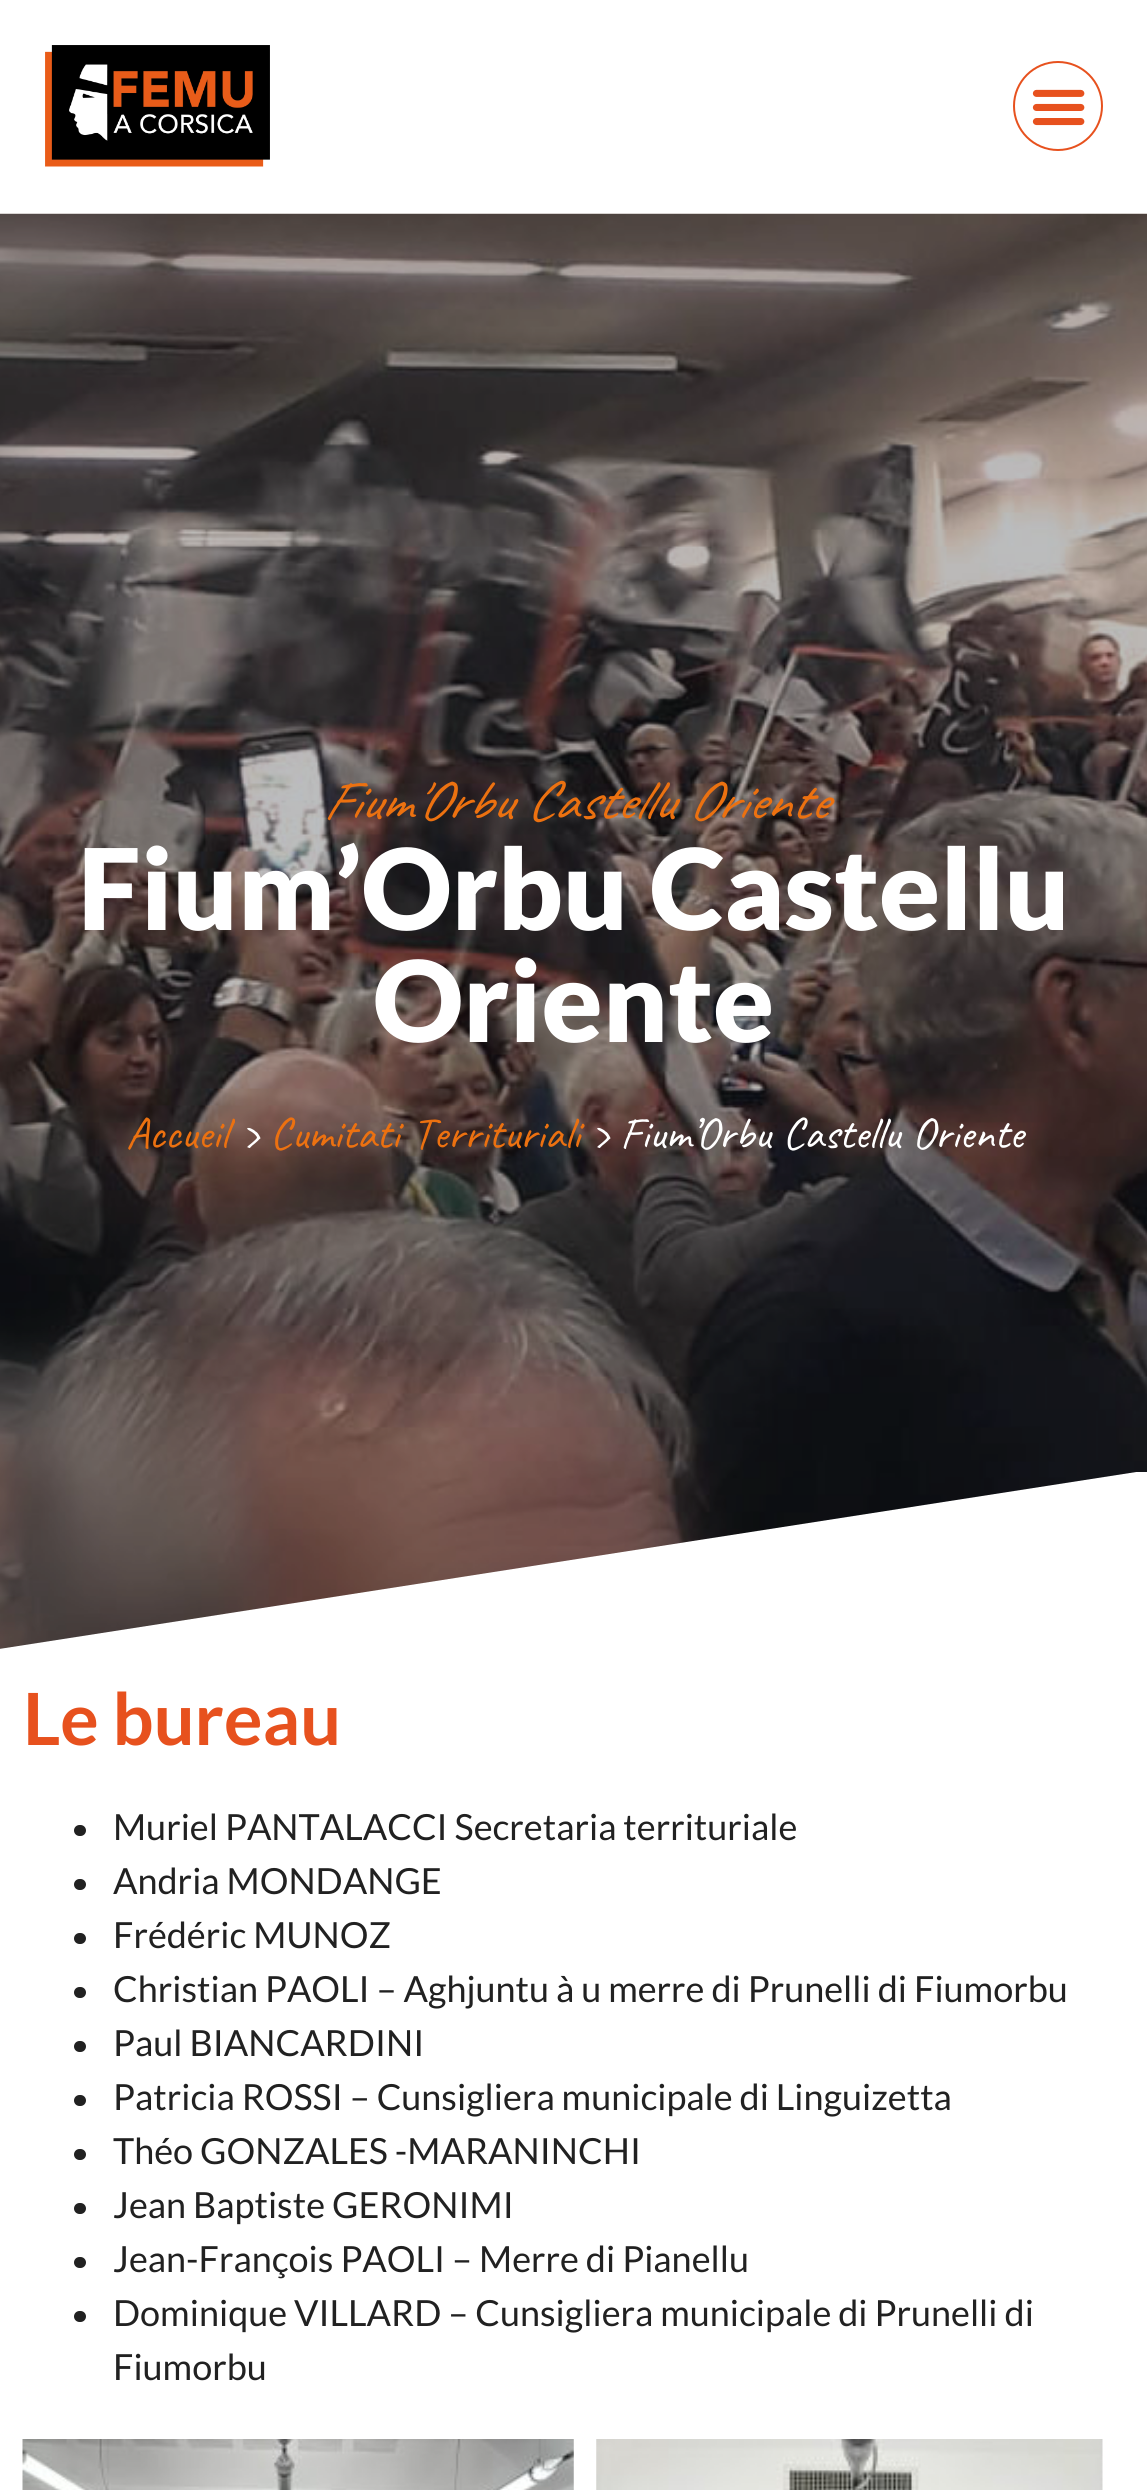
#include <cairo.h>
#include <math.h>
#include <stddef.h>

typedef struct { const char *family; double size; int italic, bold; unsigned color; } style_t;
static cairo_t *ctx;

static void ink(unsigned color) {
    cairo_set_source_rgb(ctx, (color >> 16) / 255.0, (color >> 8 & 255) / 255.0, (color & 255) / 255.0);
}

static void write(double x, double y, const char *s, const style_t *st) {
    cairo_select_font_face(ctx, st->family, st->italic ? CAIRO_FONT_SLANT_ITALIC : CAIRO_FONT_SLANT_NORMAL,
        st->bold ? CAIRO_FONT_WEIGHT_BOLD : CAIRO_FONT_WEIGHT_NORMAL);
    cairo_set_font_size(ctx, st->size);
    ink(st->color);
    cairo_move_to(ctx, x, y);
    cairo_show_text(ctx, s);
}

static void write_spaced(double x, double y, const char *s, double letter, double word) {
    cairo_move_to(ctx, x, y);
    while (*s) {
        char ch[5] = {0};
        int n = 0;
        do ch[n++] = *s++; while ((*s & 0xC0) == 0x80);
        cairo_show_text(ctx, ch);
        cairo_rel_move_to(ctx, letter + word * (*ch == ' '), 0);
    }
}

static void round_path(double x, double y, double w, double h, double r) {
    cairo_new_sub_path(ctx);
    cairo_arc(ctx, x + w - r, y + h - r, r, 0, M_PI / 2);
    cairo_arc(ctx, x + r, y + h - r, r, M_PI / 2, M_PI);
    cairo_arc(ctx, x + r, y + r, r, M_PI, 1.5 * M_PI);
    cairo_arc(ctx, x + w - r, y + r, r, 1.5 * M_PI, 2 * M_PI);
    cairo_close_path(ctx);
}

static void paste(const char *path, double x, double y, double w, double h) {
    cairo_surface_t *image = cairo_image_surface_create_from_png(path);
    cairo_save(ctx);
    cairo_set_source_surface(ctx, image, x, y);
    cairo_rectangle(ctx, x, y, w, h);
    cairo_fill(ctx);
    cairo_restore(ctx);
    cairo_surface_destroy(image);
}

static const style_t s1 = {"Lato Black", 112.5, 0, 0, 0xffffff};
static const style_t s2 = {"Caveat", 45, 0, 0, 0xec7110};
static const style_t s3 = {"Caveat", 45, 0, 0, 0xffffff};
static const style_t s4 = {"Lato", 72, 0, 1, 0xe7511e};
static const style_t s5 = {"Lato", 36, 0, 0, 0x212121};

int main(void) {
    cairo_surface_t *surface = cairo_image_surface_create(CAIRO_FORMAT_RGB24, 1147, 2490);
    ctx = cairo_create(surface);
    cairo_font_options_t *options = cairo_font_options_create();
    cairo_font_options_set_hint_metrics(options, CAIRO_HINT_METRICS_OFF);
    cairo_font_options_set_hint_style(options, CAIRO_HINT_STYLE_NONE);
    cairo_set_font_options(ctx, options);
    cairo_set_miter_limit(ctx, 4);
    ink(0xffffff);
    cairo_paint(ctx);
    paste("pic1.png", 45, 45, 225, 122);
    cairo_arc(ctx, 1058, 106, 44, 0, 2 * M_PI);
    ink(0xe7511e);
    cairo_stroke(ctx);
    paste("pic2.png", 1032, 89, 53, 37);
    paste("pic3.png", 0, 213, 1147, 1436);
    cairo_select_font_face(ctx, "Caveat", CAIRO_FONT_SLANT_ITALIC, CAIRO_FONT_WEIGHT_NORMAL);
    cairo_set_font_size(ctx, 56.25);
    ink(0xec7110);
    write_spaced(323, 819, "Fium'Orbu Castellu Oriente", 0, 1);
    write(78, 930, "Fium’Orbu Castellu", &s1);
    write(373, 1042, "Oriente", &s1);
    write(126, 1148, "Accueil", &s2);
    write(239, 1148, "›", &s3);
    ink(0xec7110);
    write_spaced(270, 1148, "Cumitati Territuriali", 0, 2);
    write(589, 1148, "›", &s3);
    write_spaced(620, 1148, "Fium’Orbu Castellu Oriente", 0, 1);
    cairo_save(ctx);
    cairo_rectangle(ctx, 0, 1472, 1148, 191);
    cairo_clip(ctx);
    cairo_new_path(ctx);
    cairo_move_to(ctx, -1, 1649);
    cairo_line_to(ctx, -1, 1661);
    cairo_line_to(ctx, 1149, 1661);
    cairo_line_to(ctx, 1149, 1470);
    cairo_close_path(ctx);
    cairo_fill(ctx);
    cairo_restore(ctx);
    write(23, 1745, "Le bureau", &s4);
    ink(0x212121);
    round_path(74, 1825, 12, 11, 5.5);
    cairo_fill(ctx);
    write(113, 1840, "Muriel PANTALACCI Secretaria territuriale", &s5);
    round_path(74, 1879, 12, 11, 5.5);
    cairo_fill(ctx);
    write(113, 1894, "Andria MONDANGE", &s5);
    round_path(74, 1933, 12, 11, 5.5);
    cairo_fill(ctx);
    write(113, 1948, "Frédéric MUNOZ", &s5);
    round_path(74, 1987, 12, 11, 5.5);
    cairo_fill(ctx);
    write(113, 2002, "Christian PAOLI – Aghjuntu à u merre di Prunelli di Fiumorbu", &s5);
    round_path(74, 2041, 12, 11, 5.5);
    cairo_fill(ctx);
    write(113, 2056, "Paul BIANCARDINI", &s5);
    round_path(74, 2095, 12, 11, 5.5);
    cairo_fill(ctx);
    write(113, 2110, "Patricia ROSSI – Cunsigliera municipale di Linguizetta", &s5);
    round_path(74, 2149, 12, 11, 5.5);
    cairo_fill(ctx);
    write(113, 2164, "Théo GONZALES -MARANINCHI", &s5);
    round_path(74, 2203, 12, 11, 5.5);
    cairo_fill(ctx);
    write(113, 2218, "Jean Baptiste GERONIMI", &s5);
    round_path(74, 2257, 12, 11, 5.5);
    cairo_fill(ctx);
    write(113, 2272, "Jean-François PAOLI – Merre di Pianellu", &s5);
    round_path(74, 2311, 12, 11, 5.5);
    cairo_fill(ctx);
    write(113, 2326, "Dominique VILLARD – Cunsigliera municipale di Prunelli di", &s5);
    write(113, 2380, "Fiumorbu", &s5);
    paste("pic4.png", 22, 2439, 552, 51);
    paste("pic5.png", 596, 2439, 507, 51);
    cairo_surface_write_to_png(surface, "screenshot.png");
    cairo_font_options_destroy(options);
    cairo_destroy(ctx);
    cairo_surface_destroy(surface);
    return 0;
}
